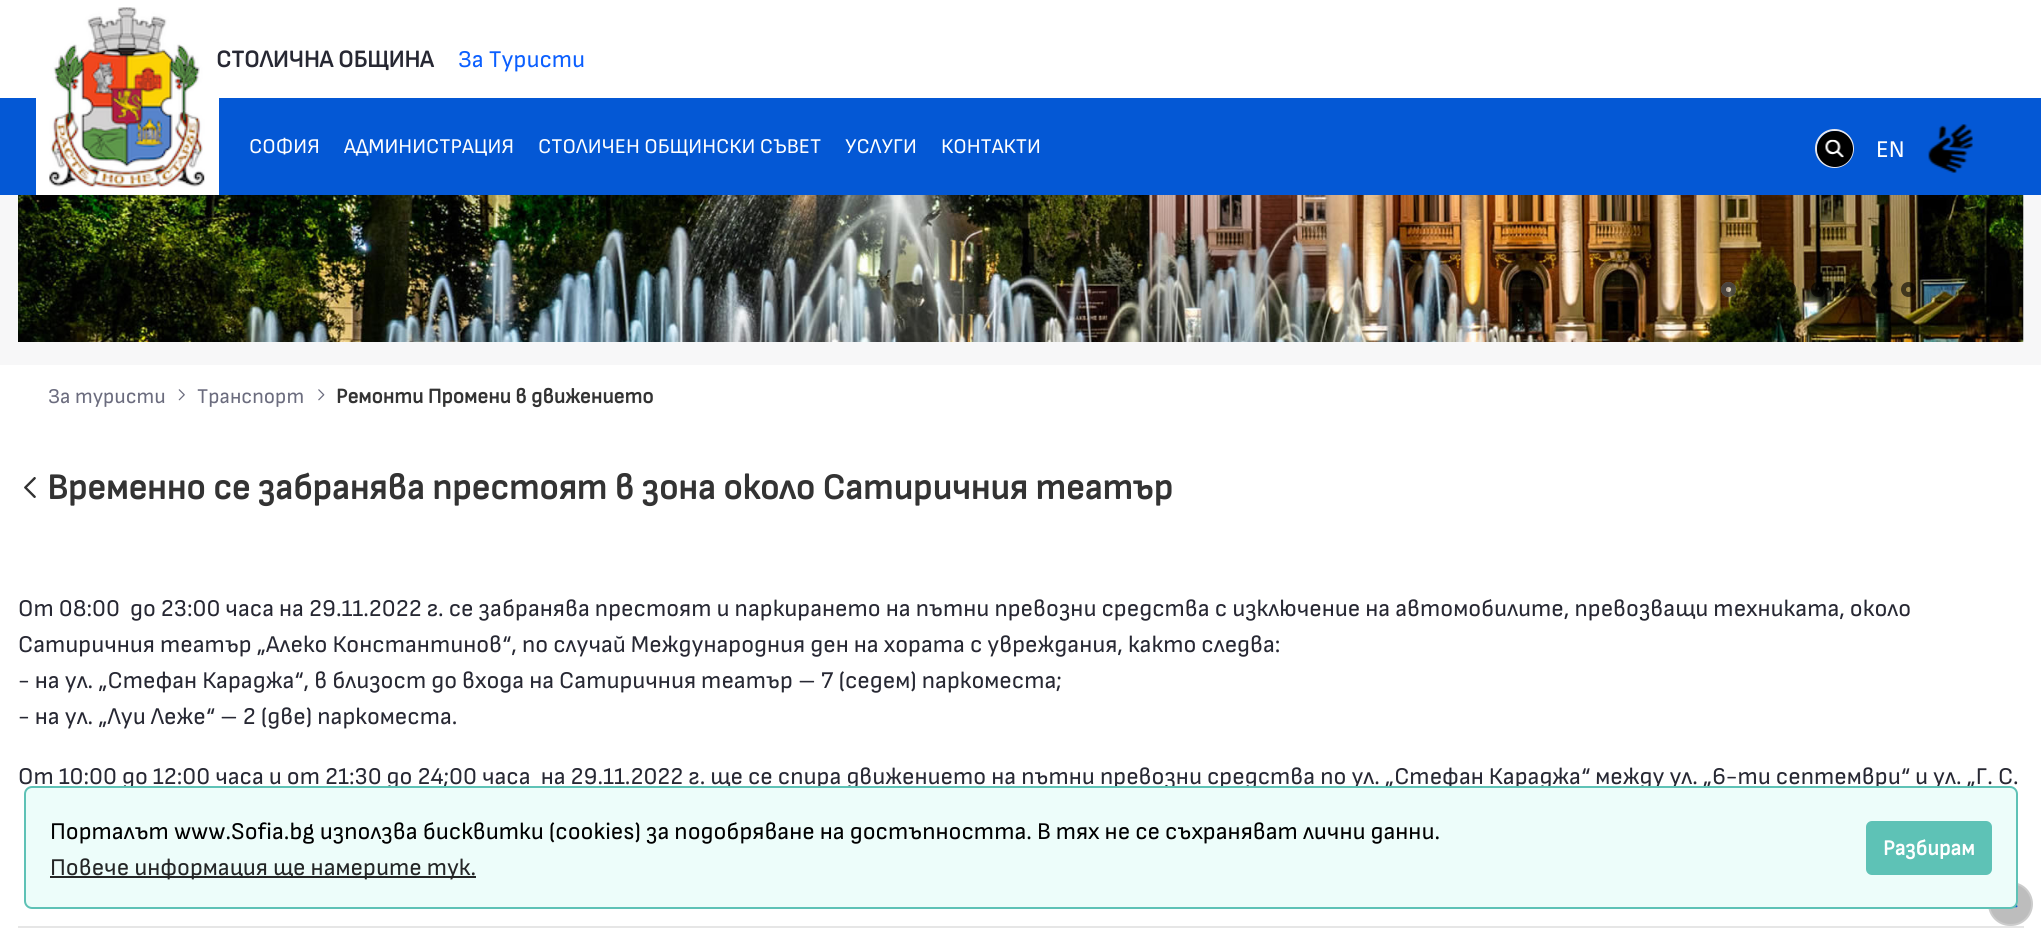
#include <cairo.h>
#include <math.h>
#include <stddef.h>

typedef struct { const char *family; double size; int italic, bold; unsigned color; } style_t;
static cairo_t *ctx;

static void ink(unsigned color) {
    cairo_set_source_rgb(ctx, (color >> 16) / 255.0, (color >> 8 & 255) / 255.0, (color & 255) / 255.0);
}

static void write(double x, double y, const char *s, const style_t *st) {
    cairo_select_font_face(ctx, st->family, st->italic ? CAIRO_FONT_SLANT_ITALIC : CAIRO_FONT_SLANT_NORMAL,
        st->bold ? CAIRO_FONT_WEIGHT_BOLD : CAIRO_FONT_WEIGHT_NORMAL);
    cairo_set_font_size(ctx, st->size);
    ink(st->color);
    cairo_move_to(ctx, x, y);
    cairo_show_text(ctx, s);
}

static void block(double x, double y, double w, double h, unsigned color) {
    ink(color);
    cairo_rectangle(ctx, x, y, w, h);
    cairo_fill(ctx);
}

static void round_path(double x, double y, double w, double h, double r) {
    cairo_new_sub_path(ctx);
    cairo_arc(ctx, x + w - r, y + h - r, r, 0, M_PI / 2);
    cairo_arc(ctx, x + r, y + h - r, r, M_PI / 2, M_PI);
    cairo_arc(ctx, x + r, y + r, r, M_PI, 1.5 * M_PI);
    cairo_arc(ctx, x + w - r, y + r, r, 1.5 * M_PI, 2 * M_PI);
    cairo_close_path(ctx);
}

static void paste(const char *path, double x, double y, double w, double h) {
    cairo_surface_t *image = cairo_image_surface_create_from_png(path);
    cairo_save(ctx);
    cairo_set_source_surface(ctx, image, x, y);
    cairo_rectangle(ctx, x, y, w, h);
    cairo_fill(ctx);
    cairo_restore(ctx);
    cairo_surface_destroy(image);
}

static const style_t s1 = {"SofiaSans", 24, 0, 1, 0x272833};
static const style_t s2 = {"SofiaSans", 24, 0, 0, 0x0b5fff};
static const style_t s3 = {"SofiaSans", 24, 0, 0, 0xffffff};
static const style_t s4 = {"SofiaSans", 21, 0, 0, 0xffffff};
static const style_t s5 = {"SofiaSans", 21, 0, 0, 0x6b6c7e};
static const style_t s6 = {"SofiaSans", 21, 0, 1, 0x333333};
static const style_t s7 = {"SofiaSans", 36, 0, 1, 0x333333};
static const style_t s8 = {"SofiaSans", 24, 0, 0, 0x272833};
static const style_t s9 = {"SofiaSans", 24, 0, 0, 0x000000};
static const style_t s10 = {"SofiaSans", 24, 0, 0, 0x242626};
static const style_t s11 = {"SofiaSans", 21.5, 0, 1, 0xffffff};

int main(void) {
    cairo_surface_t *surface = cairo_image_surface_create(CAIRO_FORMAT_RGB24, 2041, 932);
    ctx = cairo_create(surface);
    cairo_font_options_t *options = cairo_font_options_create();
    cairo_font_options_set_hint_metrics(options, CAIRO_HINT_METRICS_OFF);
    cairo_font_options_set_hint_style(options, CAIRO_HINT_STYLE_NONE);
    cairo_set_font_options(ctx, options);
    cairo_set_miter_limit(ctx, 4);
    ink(0xffffff);
    cairo_paint(ctx);
    block(0, 98, 2041, 97, 0x0458d5);
    paste("pic1.png", 36, 7, 183, 188);
    write(216, 67, "СТОЛИЧНА ОБЩИНА", &s1);
    write(458, 67, "За Туристи", &s2);
    cairo_new_path(ctx);
    cairo_arc(ctx, 1834.5, 148.5, 18.5, 0, 2 * M_PI);
    ink(0xe7e7ed);
    cairo_stroke(ctx);
    ink(0x000000);
    cairo_arc(ctx, 1835, 149, 18, 0, 2 * M_PI);
    cairo_fill(ctx);
    paste("pic2.png", 1825, 139, 19, 19);
    write(1876, 157, "EN", &s3);
    paste("pic3.png", 1928, 124, 45, 49);
    write(249, 153, "СОФИЯ", &s4);
    write(344, 153, "АДМИНИСТРАЦИЯ", &s4);
    write(538, 153, "СТОЛИЧЕН ОБЩИНСКИ СЪВЕТ", &s4);
    write(845, 153, "УСЛУГИ", &s4);
    write(941, 153, "КОНТАКТИ", &s4);
    block(0, 195, 2041, 170, 0xf7f7f8);
    paste("pic4.png", 18, 195, 2006, 147);
    cairo_set_source_rgba(ctx, 1, 1, 1, 0.6);
    cairo_arc(ctx, 1728.5, 289.5, 7.5, 0, 2 * M_PI);
    cairo_fill(ctx);
    cairo_arc(ctx, 1728.5, 289.5, 5, 0, 2 * M_PI);
    cairo_set_source_rgba(ctx, 0, 0, 0, 0.6);
    cairo_set_line_width(ctx, 5);
    cairo_stroke(ctx);
    cairo_arc(ctx, 1758.5, 289.5, 5, 0, 2 * M_PI);
    cairo_stroke(ctx);
    cairo_arc(ctx, 1788.5, 289.5, 5, 0, 2 * M_PI);
    cairo_stroke(ctx);
    cairo_arc(ctx, 1818.5, 289.5, 5, 0, 2 * M_PI);
    cairo_stroke(ctx);
    cairo_arc(ctx, 1848.5, 289.5, 5, 0, 2 * M_PI);
    cairo_stroke(ctx);
    cairo_arc(ctx, 1878.5, 289.5, 5, 0, 2 * M_PI);
    cairo_stroke(ctx);
    cairo_arc(ctx, 1908.5, 289.5, 5, 0, 2 * M_PI);
    cairo_stroke(ctx);
    write(48, 403, "За туристи", &s5);
    paste("pic5.png", 178, 389, 7, 12);
    write(197, 403, "Транспорт", &s5);
    paste("pic6.png", 318, 389, 7, 12);
    write(336, 403, "Ремонти Промени в движението", &s6);
    paste("pic7.png", 24, 477, 12, 21);
    write(47, 499, "Временно се забранява престоят в зона около Сатиричния театър", &s7);
    write(18, 616, "От 08:00  до 23:00 часа на 29.11.2022 г. се забранява престоят и паркирането на пътни превозни средства с изключение на автомобилите, превозващи техниката, около", &s8);
    write(18, 652, "Сатиричния театър „Алеко Константинов“, по случай Международния ден на хората с увреждания, както следва:", &s8);
    write(18, 688, "- на ул. „Стефан Караджа“, в близост до входа на Сатиричния театър – 7 (седем) паркоместа;", &s8);
    write(18, 724, "- на ул. „Луи Леже“ – 2 (две) паркоместа.", &s8);
    write(18, 784, "От 10:00 до 12:00 часа и от 21:30 до 24;00 часа  на 29.11.2022 г. ще се спира движението на пътни превозни средства по ул. „Стефан Караджа“ между ул. „6-ти септември“ и ул. „Г. С.", &s8);
    block(18, 926, 2006, 2, 0xe6e6e6);
    ink(0xbdbdbd);
    round_path(1989, 883, 43, 42, 21);
    cairo_fill_preserve(ctx);
    ink(0xcccccc);
    cairo_set_line_width(ctx, 2);
    cairo_stroke(ctx);
    paste("pic8.png", 2013, 904, 5, 4);
    ink(0xedfdfa);
    round_path(25, 787, 1992, 121, 7);
    cairo_fill_preserve(ctx);
    ink(0x5ec2b6);
    cairo_stroke(ctx);
    write(50, 839, "Порталът www.Sofia.bg използва бисквитки (cookies) за подобряване на достъпността. В тях не се съхраняват лични данни.", &s9);
    block(50, 876, 426, 2, 0x242626);
    write(50, 875, "Повече информация ще намерите тук.", &s10);
    ink(0x5ec2b6);
    round_path(1866, 821, 126, 54, 6);
    cairo_fill(ctx);
    write(1883, 855, "Разбирам", &s11);
    cairo_surface_write_to_png(surface, "screenshot.png");
    cairo_font_options_destroy(options);
    cairo_destroy(ctx);
    cairo_surface_destroy(surface);
    return 0;
}
